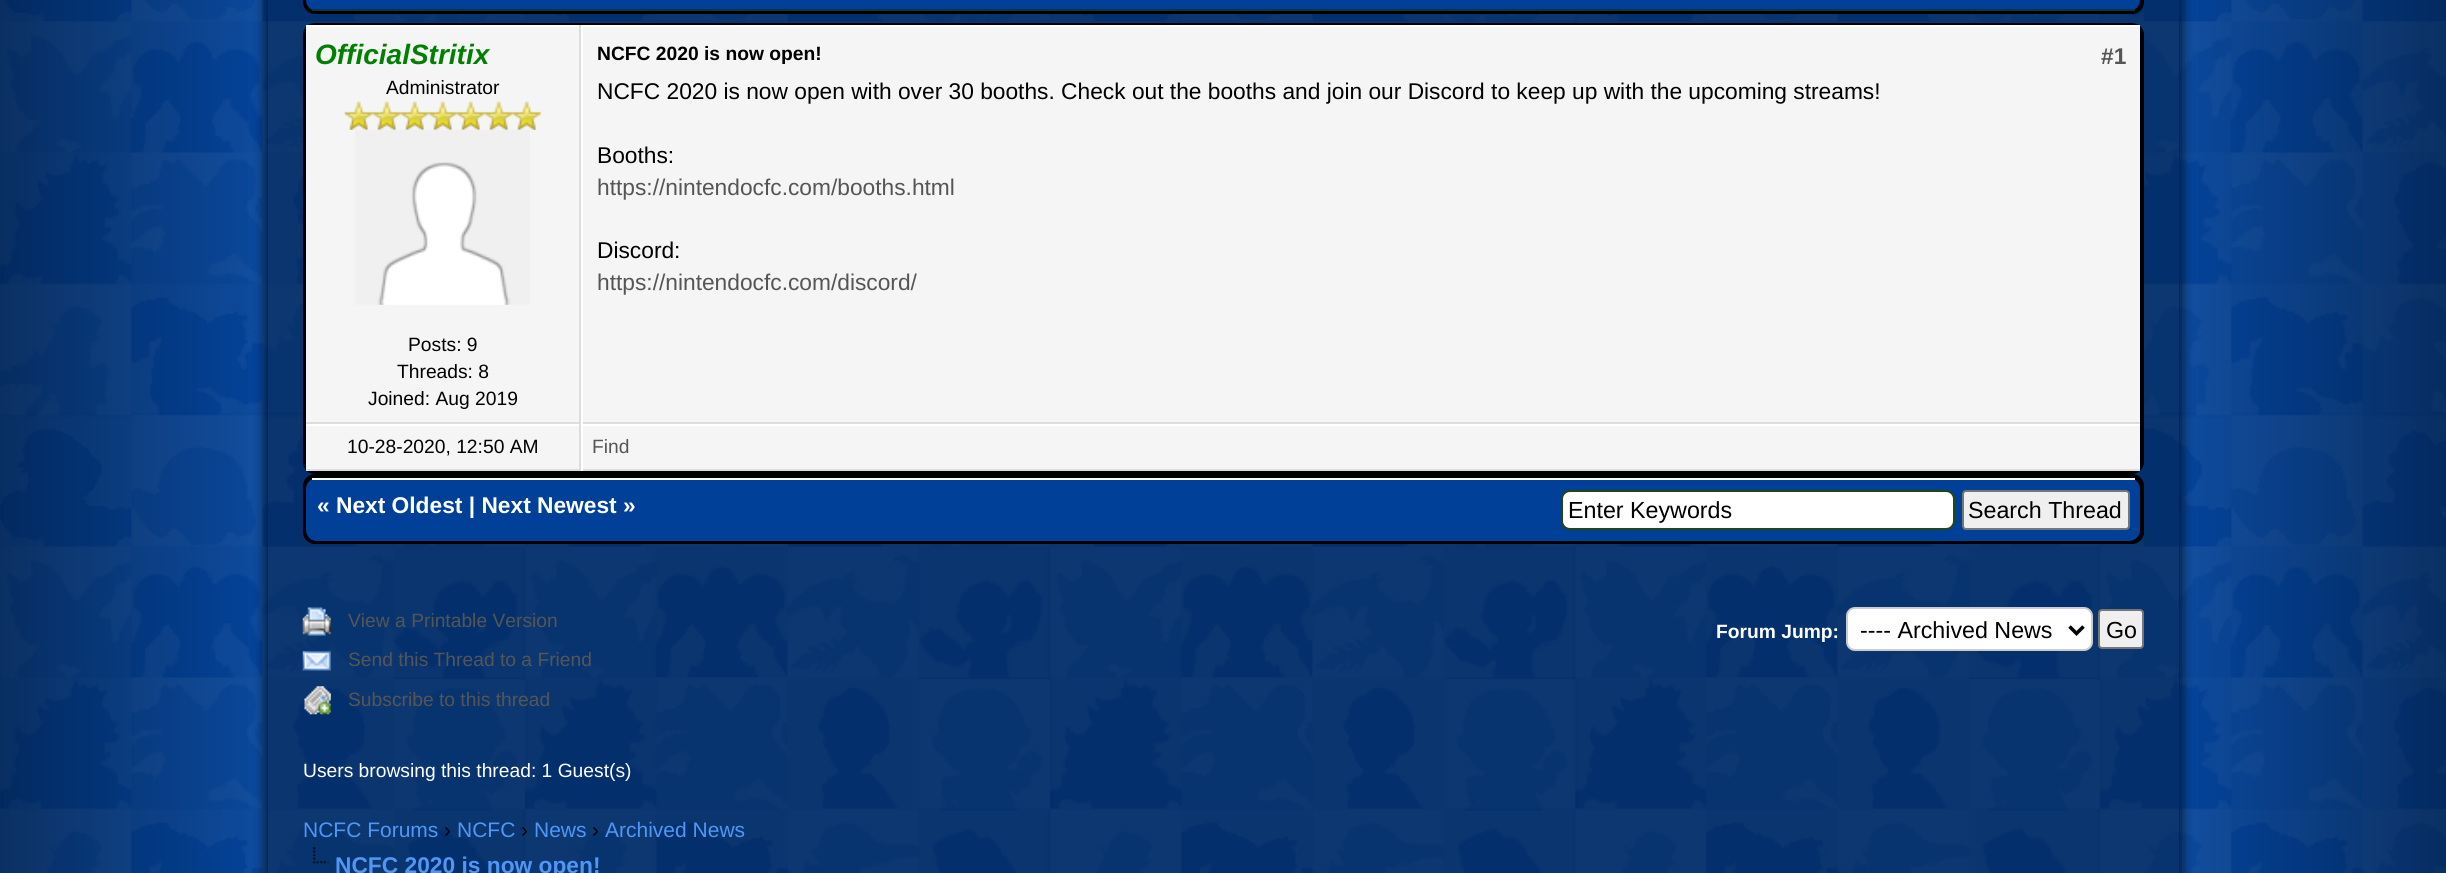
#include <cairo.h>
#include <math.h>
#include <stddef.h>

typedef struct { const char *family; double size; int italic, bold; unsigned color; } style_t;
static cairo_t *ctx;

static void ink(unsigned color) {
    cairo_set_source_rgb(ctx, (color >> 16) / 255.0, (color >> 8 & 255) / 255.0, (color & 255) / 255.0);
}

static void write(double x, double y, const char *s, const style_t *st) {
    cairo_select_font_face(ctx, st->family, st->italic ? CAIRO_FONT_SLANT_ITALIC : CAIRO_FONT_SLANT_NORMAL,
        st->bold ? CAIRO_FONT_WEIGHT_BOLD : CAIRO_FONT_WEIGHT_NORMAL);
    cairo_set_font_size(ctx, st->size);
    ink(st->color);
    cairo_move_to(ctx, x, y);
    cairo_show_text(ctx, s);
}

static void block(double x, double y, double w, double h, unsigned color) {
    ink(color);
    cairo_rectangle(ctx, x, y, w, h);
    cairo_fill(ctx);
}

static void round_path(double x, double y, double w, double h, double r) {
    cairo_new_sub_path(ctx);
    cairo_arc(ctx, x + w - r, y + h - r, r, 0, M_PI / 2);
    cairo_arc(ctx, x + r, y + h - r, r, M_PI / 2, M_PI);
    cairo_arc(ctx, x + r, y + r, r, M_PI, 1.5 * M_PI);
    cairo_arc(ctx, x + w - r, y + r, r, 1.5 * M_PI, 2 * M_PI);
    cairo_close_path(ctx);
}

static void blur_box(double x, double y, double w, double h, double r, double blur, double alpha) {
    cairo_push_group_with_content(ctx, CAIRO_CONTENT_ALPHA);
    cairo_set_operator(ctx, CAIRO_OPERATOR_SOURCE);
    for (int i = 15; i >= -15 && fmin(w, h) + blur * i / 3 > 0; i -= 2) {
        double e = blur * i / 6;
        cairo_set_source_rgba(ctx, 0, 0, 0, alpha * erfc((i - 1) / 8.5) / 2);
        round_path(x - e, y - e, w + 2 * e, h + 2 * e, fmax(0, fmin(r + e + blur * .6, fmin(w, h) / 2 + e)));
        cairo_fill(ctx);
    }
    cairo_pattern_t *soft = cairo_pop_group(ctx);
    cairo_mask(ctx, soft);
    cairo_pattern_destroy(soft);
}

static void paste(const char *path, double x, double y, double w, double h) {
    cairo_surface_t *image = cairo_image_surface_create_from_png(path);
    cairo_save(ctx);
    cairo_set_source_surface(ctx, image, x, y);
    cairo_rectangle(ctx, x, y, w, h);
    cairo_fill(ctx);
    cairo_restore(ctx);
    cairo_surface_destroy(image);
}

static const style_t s1 = {"Liberation Sans", 28, 1, 1, 0x008000};
static const style_t s2 = {"Liberation Sans", 19.25, 0, 0, 0x000000};
static const style_t s3 = {"Liberation Sans", 19.25, 0, 1, 0x000000};
static const style_t s4 = {"Liberation Sans", 22.75, 0, 1, 0x555555};
static const style_t s5 = {"Liberation Sans", 22.75, 0, 0, 0x000000};
static const style_t s6 = {"Liberation Sans", 22.75, 0, 0, 0x555555};
static const style_t s7 = {"Liberation Sans", 19.25, 0, 0, 0x555555};
static const style_t s8 = {"Liberation Sans", 22.75, 0, 1, 0xffffff};
static const style_t s9 = {"Liberation Sans", 23.25, 0, 0, 0x000000};
static const style_t s10 = {"Liberation Sans", 19.25, 0, 1, 0xffffff};
static const style_t s11 = {"Liberation Sans", 19.25, 0, 0, 0xffffff};
static const style_t s12 = {"Liberation Sans", 21, 0, 0, 0x5096f5};
static const style_t s13 = {"Liberation Sans", 21, 0, 0, 0x000000};
static const style_t s14 = {"Liberation Sans", 22.75, 0, 1, 0x5096f5};

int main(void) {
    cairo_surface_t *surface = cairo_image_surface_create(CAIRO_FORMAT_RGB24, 2446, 873);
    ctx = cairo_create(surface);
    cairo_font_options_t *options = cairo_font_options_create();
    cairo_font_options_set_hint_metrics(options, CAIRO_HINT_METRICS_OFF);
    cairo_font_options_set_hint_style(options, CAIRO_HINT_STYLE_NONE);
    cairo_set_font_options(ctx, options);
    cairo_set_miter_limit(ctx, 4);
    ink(0xffffff);
    cairo_paint(ctx);
    paste("pic1.png", 0, 0, 2446, 873);
    paste("pic2.png", 0, 0, 248, 873);
    cairo_save(ctx);
    cairo_set_fill_rule(ctx, CAIRO_FILL_RULE_EVEN_ODD);
    cairo_new_path(ctx);
    cairo_move_to(ctx, 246, 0);
    cairo_line_to(ctx, 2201, 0);
    cairo_line_to(ctx, 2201, 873);
    cairo_line_to(ctx, 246, 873);
    cairo_close_path(ctx);
    cairo_move_to(ctx, 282, -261);
    cairo_line_to(ctx, 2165, -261);
    cairo_curve_to(ctx, 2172.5, -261, 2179, -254.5, 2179, -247);
    cairo_line_to(ctx, 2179, 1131);
    cairo_curve_to(ctx, 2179, 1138.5, 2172.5, 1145, 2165, 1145);
    cairo_line_to(ctx, 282, 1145);
    cairo_curve_to(ctx, 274.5, 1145, 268, 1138.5, 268, 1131);
    cairo_line_to(ctx, 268, -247);
    cairo_curve_to(ctx, 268, -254.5, 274.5, -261, 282, -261);
    cairo_close_path(ctx);
    cairo_clip(ctx);
    ink(0x000000);
    blur_box(268, -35, 1911, 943, 14, 7, 1);
    cairo_restore(ctx);
    cairo_set_source_rgba(ctx, 0, 0, 0, 0.3);
    cairo_rectangle(ctx, 268, 0, 1911, 873);
    cairo_fill(ctx);
    ink(0x000000);
    round_path(304, -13, 1839, 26, 11);
    cairo_fill_preserve(ctx);
    cairo_stroke(ctx);
    ink(0x004098);
    round_path(306, -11, 1834, 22, 11);
    cairo_fill(ctx);
    block(312, 9, 1823, 2, 0x0e353f);
    ink(0x000000);
    cairo_new_path(ctx);
    cairo_move_to(ctx, 315, 23);
    cairo_line_to(ctx, 2132, 23);
    cairo_curve_to(ctx, 2137, 23, 2142, 28, 2142, 35);
    cairo_line_to(ctx, 2142, 462);
    cairo_curve_to(ctx, 2142, 468, 2137, 472, 2132, 472);
    cairo_line_to(ctx, 315, 472);
    cairo_curve_to(ctx, 309, 472, 304, 468, 304, 462);
    cairo_line_to(ctx, 304, 35);
    cairo_curve_to(ctx, 304, 28, 309, 23, 315, 23);
    cairo_close_path(ctx);
    cairo_fill(ctx);
    cairo_set_fill_rule(ctx, CAIRO_FILL_RULE_EVEN_ODD);
    cairo_new_path(ctx);
    cairo_move_to(ctx, 315, 23);
    cairo_line_to(ctx, 2132, 23);
    cairo_curve_to(ctx, 2138, 23, 2144, 28, 2144, 35);
    cairo_line_to(ctx, 2144, 462);
    cairo_curve_to(ctx, 2144, 469, 2138, 474, 2132, 474);
    cairo_line_to(ctx, 315, 474);
    cairo_curve_to(ctx, 308, 474, 303, 469, 303, 462);
    cairo_line_to(ctx, 303, 35);
    cairo_curve_to(ctx, 303, 28, 308, 23, 315, 23);
    cairo_close_path(ctx);
    cairo_move_to(ctx, 315, 23);
    cairo_line_to(ctx, 2132, 23);
    cairo_curve_to(ctx, 2137, 23, 2142, 28, 2142, 35);
    cairo_line_to(ctx, 2142, 462);
    cairo_curve_to(ctx, 2142, 468, 2137, 472, 2132, 472);
    cairo_line_to(ctx, 315, 472);
    cairo_curve_to(ctx, 309, 472, 304, 468, 304, 462);
    cairo_line_to(ctx, 304, 35);
    cairo_curve_to(ctx, 304, 28, 309, 23, 315, 23);
    cairo_close_path(ctx);
    cairo_fill(ctx);
    block(306, 27, 273, 395, 0xf5f5f5);
    block(306, 25, 1834, 2, 0xffffff);
    block(579, 25, 2, 399, 0xdddddd);
    block(306, 422, 1834, 2, 0xdddddd);
    write(315, 64, "OfficialStritix", &s1);
    write(386, 94, "Administrator", &s2);
    paste("pic3.png", 344, 101, 29, 29);
    paste("pic4.png", 372, 101, 29, 29);
    paste("pic4.png", 400, 101, 29, 29);
    paste("pic4.png", 428, 101, 29, 29);
    paste("pic4.png", 456, 101, 29, 29);
    paste("pic4.png", 484, 101, 29, 29);
    paste("pic4.png", 512, 101, 29, 29);
    paste("pic5.png", 355, 129, 175, 176);
    write(408, 351, "Posts: 9", &s2);
    write(397, 378, "Threads: 8", &s2);
    write(368, 405, "Joined: Aug 2019", &s2);
    block(583, 27, 1557, 395, 0xf5f5f5);
    block(581, 25, 2, 399, 0xffffff);
    write(597, 60, "NCFC 2020 is now open!", &s3);
    write(2101, 64, "#1", &s4);
    write(597, 99, "NCFC 2020 is now open with over 30 booths. Check out the booths and join our Discord to keep up with the upcoming streams!", &s5);
    write(597, 163, "Booths:", &s5);
    write(597, 195, "https://nintendocfc.com/booths.html", &s6);
    write(597, 258, "Discord:", &s5);
    write(597, 290, "https://nintendocfc.com/discord/", &s6);
    block(306, 426, 273, 43, 0xf5f5f5);
    block(306, 424, 1834, 2, 0xffffff);
    block(579, 424, 2, 47, 0xdddddd);
    block(306, 469, 1834, 2, 0xdddddd);
    write(347, 453, "10-28-2020, 12:50 AM", &s2);
    block(583, 426, 1557, 43, 0xf5f5f5);
    block(581, 424, 2, 47, 0xffffff);
    write(592, 453, "Find", &s7);
    ink(0x000000);
    round_path(304, 475, 1839, 68, 11);
    cairo_fill_preserve(ctx);
    cairo_stroke(ctx);
    ink(0x004098);
    round_path(306, 478, 1834, 63, 11);
    cairo_fill(ctx);
    block(312, 478, 1823, 2, 0xffffff);
    write(317, 513, "« Next Oldest | Next Newest »", &s8);
    round_path(1562, 491, 392, 38, 8);
    cairo_fill_preserve(ctx);
    ink(0x234615);
    cairo_stroke(ctx);
    write(1568, 518, "Enter Keywords", &s9);
    ink(0xefefef);
    round_path(1963, 491, 166, 38, 3);
    cairo_fill_preserve(ctx);
    ink(0x767676);
    cairo_stroke(ctx);
    write(1968, 518, "Search Thread", &s9);
    paste("pic6.png", 302, 607, 29, 29);
    write(348, 627, "View a Printable Version", &s7);
    paste("pic7.png", 302, 650, 29, 21);
    write(348, 666, "Send this Thread to a Friend", &s7);
    paste("pic8.png", 304, 686, 27, 29);
    write(348, 706, "Subscribe to this thread", &s7);
    write(1716, 638, "Forum Jump:", &s10);
    round_path(1847, 608, 245, 42, 8);
    cairo_fill_preserve(ctx);
    ink(0xcccccc);
    cairo_stroke(ctx);
    cairo_new_path(ctx);
    cairo_move_to(ctx, 2069.5, 626.5);
    cairo_line_to(ctx, 2076.5, 633.5);
    cairo_line_to(ctx, 2083.5, 626.5);
    ink(0x000000);
    cairo_set_line_width(ctx, 3.5);
    cairo_stroke(ctx);
    write(1860, 638, "---- Archived News", &s9);
    ink(0xefefef);
    round_path(2099, 610, 44, 38, 3);
    cairo_fill_preserve(ctx);
    ink(0x767676);
    cairo_set_line_width(ctx, 2);
    cairo_stroke(ctx);
    write(2106, 638, "Go", &s9);
    write(303, 777, "Users browsing this thread: 1 Guest(s)", &s11);
    write(303, 837, "NCFC Forums", &s12);
    write(444, 837, "›", &s13);
    write(457, 837, "NCFC", &s12);
    write(521, 837, "›", &s13);
    write(534, 837, "News", &s12);
    write(592, 837, "›", &s13);
    write(605, 837, "Archived News", &s12);
    paste("pic9.png", 312, 847, 17, 17);
    write(335, 873, "NCFC 2020 is now open!", &s14);
    paste("pic10.png", 2198, 0, 248, 873);
    cairo_surface_write_to_png(surface, "screenshot.png");
    cairo_font_options_destroy(options);
    cairo_destroy(ctx);
    cairo_surface_destroy(surface);
    return 0;
}
